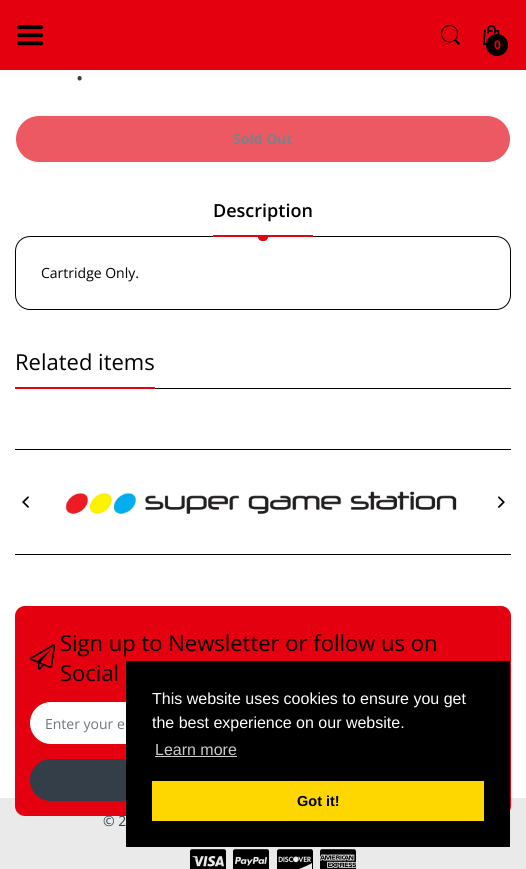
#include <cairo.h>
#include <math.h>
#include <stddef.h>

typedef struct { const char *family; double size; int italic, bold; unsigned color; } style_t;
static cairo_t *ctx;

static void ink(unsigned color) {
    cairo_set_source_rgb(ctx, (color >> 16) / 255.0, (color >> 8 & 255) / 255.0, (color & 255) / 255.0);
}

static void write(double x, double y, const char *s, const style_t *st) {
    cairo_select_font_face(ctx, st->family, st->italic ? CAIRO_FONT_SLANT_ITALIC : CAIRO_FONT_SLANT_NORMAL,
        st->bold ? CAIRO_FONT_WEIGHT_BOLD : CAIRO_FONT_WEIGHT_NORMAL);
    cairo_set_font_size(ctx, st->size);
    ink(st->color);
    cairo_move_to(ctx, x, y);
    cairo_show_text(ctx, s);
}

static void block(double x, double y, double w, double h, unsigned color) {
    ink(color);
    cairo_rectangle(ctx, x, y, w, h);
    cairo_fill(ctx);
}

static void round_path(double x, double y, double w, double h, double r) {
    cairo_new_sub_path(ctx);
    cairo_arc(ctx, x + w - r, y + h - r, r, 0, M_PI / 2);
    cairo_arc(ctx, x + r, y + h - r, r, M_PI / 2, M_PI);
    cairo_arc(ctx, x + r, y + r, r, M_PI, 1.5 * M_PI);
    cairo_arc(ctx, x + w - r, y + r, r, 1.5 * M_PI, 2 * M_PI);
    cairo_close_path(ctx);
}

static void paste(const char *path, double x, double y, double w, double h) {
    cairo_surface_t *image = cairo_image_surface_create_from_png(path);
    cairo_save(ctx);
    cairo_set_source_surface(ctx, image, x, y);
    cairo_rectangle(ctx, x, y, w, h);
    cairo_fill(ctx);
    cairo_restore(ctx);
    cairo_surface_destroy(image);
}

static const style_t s1 = {"Open Sans", 12, 0, 1, 0xe4000f};
static const style_t s2 = {"Open Sans", 35, 0, 0, 0x333e48};
static const style_t s3 = {"Open Sans", 14, 0, 1, 0x7a8288};
static const style_t s4 = {"Open Sans SemiBold", 18, 0, 0, 0x000000};
static const style_t s5 = {"Open Sans", 14, 0, 0, 0x000000};
static const style_t s6 = {"Open Sans", 22, 0, 0, 0x000000};
static const style_t s7 = {"Open Sans", 14, 0, 0, 0x333e48};
static const style_t s8 = {"Open Sans", 14, 0, 0, 0x6c757d};
static const style_t s9 = {"Liberation Sans", 16, 0, 0, 0xffffff};
static const style_t s10 = {"Liberation Sans", 16, 0, 0, 0xcccccc};
static const style_t s11 = {"Liberation Sans", 14.5, 0, 1, 0x000000};

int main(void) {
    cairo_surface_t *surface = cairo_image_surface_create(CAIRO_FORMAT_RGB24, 526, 869);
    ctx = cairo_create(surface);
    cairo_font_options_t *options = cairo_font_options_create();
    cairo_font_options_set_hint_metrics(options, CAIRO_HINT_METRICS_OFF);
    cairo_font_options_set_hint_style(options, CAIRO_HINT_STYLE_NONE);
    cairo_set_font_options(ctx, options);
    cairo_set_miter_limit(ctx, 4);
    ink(0xffffff);
    cairo_paint(ctx);
    block(0, 0, 526, 70, 0xe4000f);
    paste("pic1.png", 16, 25, 28, 21);
    paste("pic2.png", 441, 25, 19, 20);
    paste("pic3.png", 483, 25, 17, 20);
    ink(0x000000);
    cairo_arc(ctx, 497, 45, 11, 0, 2 * M_PI);
    cairo_fill(ctx);
    write(494, 49, "0", &s1);
    write(75, 80, ".", &s2);
    ink(0xed5963);
    round_path(15.5, 115.5, 495, 47, 23.5);
    cairo_fill_preserve(ctx);
    ink(0xffffff);
    cairo_set_line_width(ctx, 1);
    cairo_stroke(ctx);
    write(233, 144, "Sold Out", &s3);
    write(213, 217, "Description", &s4);
    round_path(15.5, 236.5, 495, 73, 14.5);
    cairo_stroke(ctx);
    block(213, 235, 100, 2, 0xe4000f);
    cairo_new_path(ctx);
    cairo_move_to(ctx, 258, 237);
    cairo_line_to(ctx, 268, 237);
    cairo_curve_to(ctx, 268, 239, 266, 241, 264, 241);
    cairo_line_to(ctx, 262, 241);
    cairo_curve_to(ctx, 260, 241, 258, 239, 258, 237);
    cairo_close_path(ctx);
    cairo_fill(ctx);
    write(41, 278, "Cartridge Only.", &s5);
    block(155, 388, 356, 1, 0x000000);
    write(15, 370, "Related items", &s6);
    block(15, 387, 140, 2, 0xe4000f);
    block(15, 449, 496, 1, 0x000000);
    block(15, 554, 496, 1, 0x000000);
    paste("pic4.png", 65, 491, 392, 24);
    paste("pic5.png", 22, 496, 7, 12);
    paste("pic6.png", 498, 496, 7, 12);
    block(0, 798, 526, 71, 0xeaeaea);
    write(103, 826, "© 2", &s7);
    ink(0xe4000f);
    round_path(15, 606, 496, 210, 10);
    cairo_fill(ctx);
    paste("pic7.png", 30, 644, 25, 26);
    write(60, 651, "Sign up to Newsletter or follow us on", &s6);
    write(60, 681, "Social", &s6);
    ink(0xffffff);
    round_path(30, 702, 466, 42, 21);
    cairo_fill(ctx);
    write(45, 729, "Enter your e", &s8);
    ink(0x333e48);
    round_path(30.5, 759.5, 465, 41, 20.5);
    cairo_fill_preserve(ctx);
    cairo_stroke(ctx);
    paste("pic8.png", 190, 849, 36, 20);
    paste("pic9.png", 233, 849, 36, 20);
    paste("pic10.png", 277, 849, 36, 20);
    paste("pic11.png", 320, 849, 36, 20);
    block(126, 661, 384, 186, 0x000000);
    write(152, 704, "This website uses cookies to ensure you get", &s9);
    write(152, 728, "the best experience on our website.", &s9);
    write(155, 755, "Learn more", &s10);
    block(155, 756, 82, 1, 0xcccccc);
    block(152, 781, 332, 40, 0xfed700);
    write(297, 806, "Got it!", &s11);
    cairo_surface_write_to_png(surface, "screenshot.png");
    cairo_font_options_destroy(options);
    cairo_destroy(ctx);
    cairo_surface_destroy(surface);
    return 0;
}
